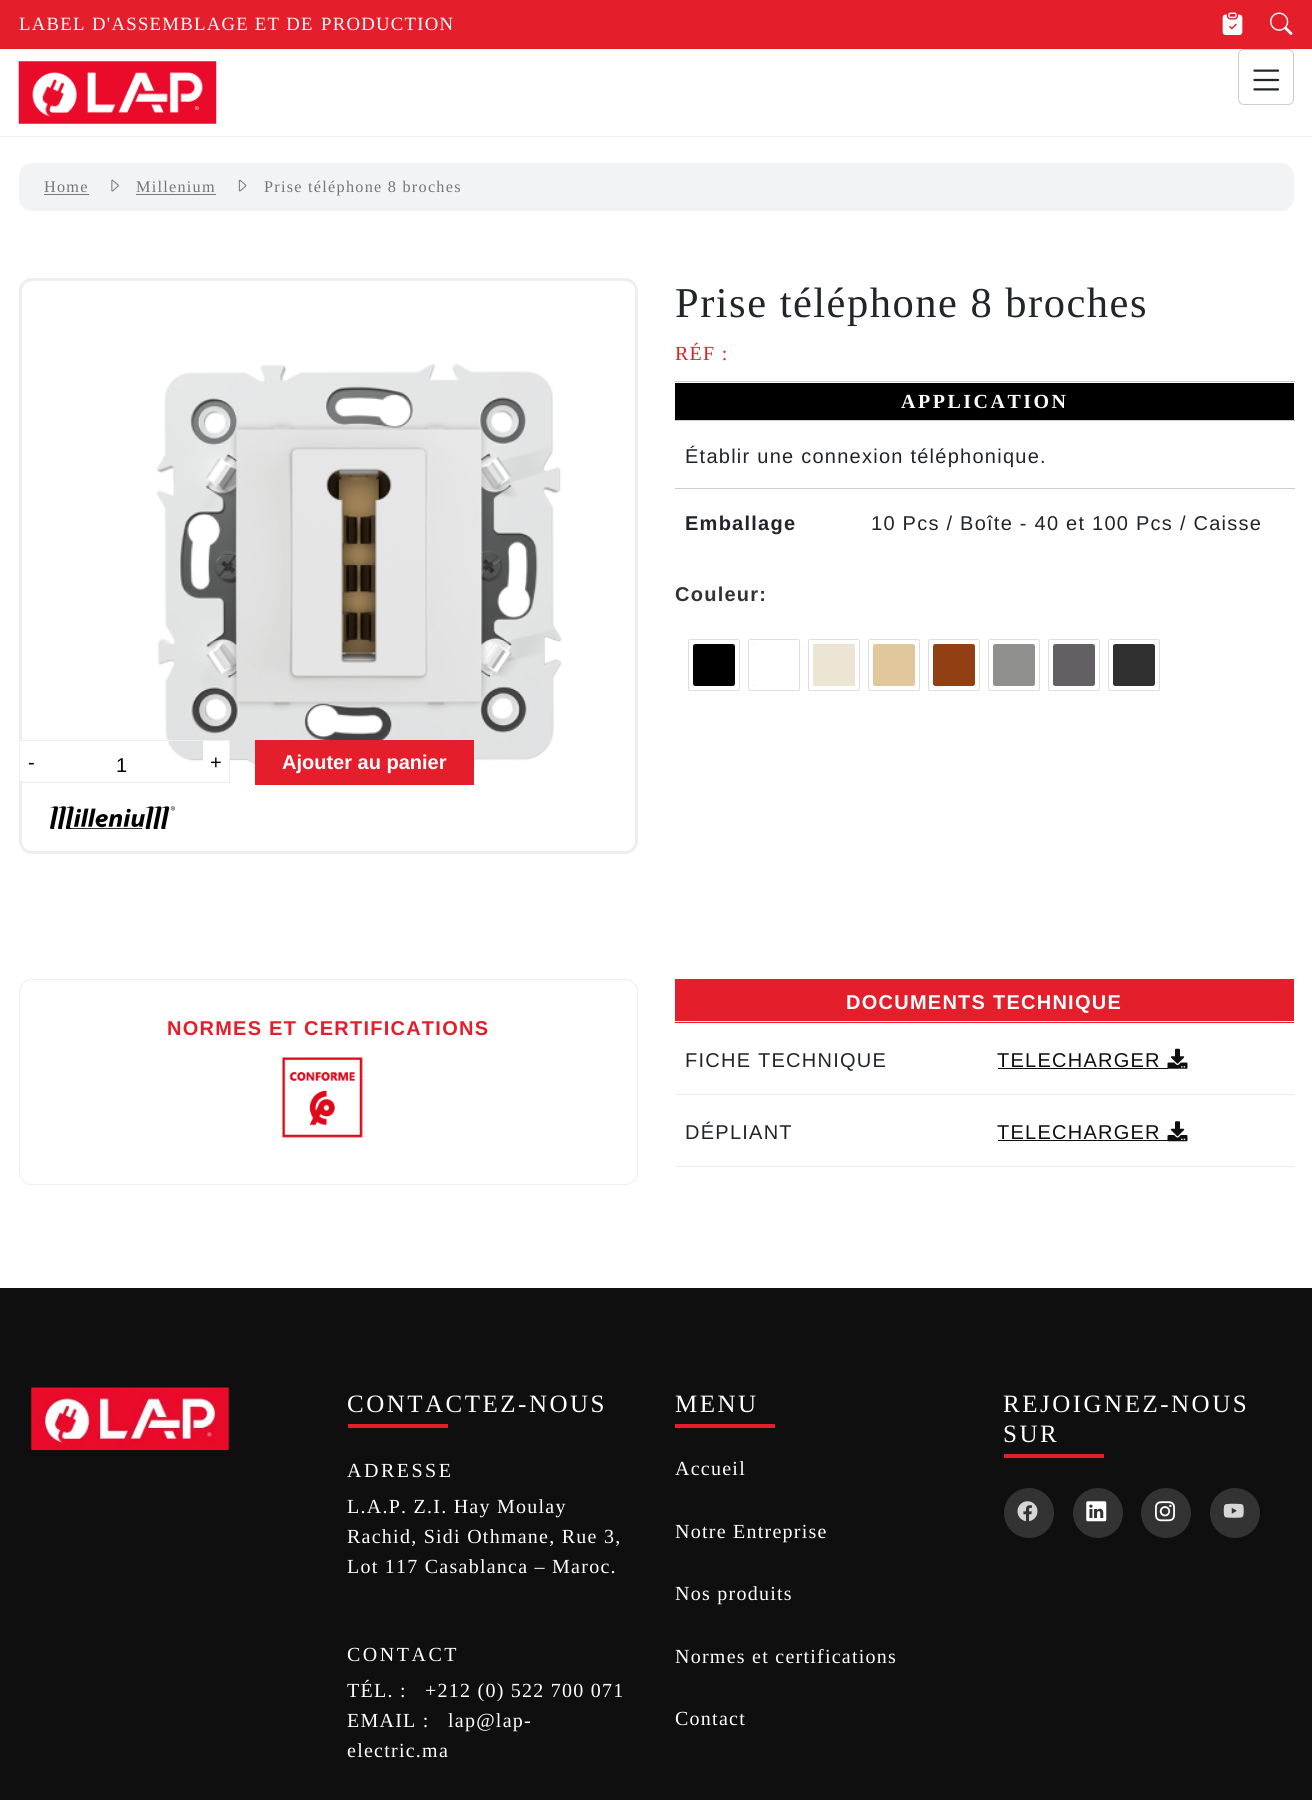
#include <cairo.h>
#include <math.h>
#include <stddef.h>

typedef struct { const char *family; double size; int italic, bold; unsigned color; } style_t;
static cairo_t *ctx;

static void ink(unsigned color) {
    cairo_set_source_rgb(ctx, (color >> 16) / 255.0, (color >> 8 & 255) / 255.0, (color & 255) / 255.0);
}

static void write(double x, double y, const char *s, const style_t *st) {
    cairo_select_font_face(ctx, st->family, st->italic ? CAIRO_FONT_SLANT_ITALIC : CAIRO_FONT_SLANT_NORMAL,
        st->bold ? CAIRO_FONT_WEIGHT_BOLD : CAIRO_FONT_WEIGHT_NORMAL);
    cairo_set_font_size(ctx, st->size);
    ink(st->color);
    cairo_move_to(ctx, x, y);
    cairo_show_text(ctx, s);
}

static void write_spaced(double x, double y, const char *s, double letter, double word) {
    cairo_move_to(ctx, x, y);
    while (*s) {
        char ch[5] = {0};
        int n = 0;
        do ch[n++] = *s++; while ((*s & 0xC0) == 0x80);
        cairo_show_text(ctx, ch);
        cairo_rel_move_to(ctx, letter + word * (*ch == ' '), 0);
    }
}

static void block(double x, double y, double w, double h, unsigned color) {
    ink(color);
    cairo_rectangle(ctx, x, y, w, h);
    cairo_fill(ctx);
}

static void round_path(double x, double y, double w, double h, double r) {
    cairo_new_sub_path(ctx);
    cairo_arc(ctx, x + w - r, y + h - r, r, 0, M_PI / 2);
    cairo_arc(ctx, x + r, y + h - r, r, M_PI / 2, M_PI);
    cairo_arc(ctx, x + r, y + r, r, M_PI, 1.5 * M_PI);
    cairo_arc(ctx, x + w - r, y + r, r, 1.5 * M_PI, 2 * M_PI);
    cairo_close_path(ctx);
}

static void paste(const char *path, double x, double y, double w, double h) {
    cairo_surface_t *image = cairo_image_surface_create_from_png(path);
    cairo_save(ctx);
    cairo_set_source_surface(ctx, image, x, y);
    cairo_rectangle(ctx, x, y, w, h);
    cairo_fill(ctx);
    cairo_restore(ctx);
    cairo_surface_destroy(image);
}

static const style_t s1 = {"Liberation Sans", 20, 0, 0, 0x000000};
static const style_t s2 = {"Liberation Sans", 20, 0, 1, 0xffffff};

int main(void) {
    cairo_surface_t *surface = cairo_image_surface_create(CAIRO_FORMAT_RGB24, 1312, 1800);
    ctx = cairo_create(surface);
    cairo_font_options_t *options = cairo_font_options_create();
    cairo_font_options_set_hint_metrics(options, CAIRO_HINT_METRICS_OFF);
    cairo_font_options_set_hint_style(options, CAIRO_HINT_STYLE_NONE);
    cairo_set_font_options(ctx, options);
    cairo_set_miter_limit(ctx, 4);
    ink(0xffffff);
    cairo_paint(ctx);
    block(0, 0, 1312, 49, 0xe41e2b);
    cairo_select_font_face(ctx, "Liberation Serif", CAIRO_FONT_SLANT_NORMAL, CAIRO_FONT_WEIGHT_NORMAL);
    cairo_set_font_size(ctx, 18.75);
    ink(0xffffff);
    write_spaced(19, 30, "LABEL", 1.25, 0);
    write_spaced(92, 30, "D'ASSEMBLAGE ET DE", 1.25, 0);
    write_spaced(321, 30, "PRODUCTION", 1.25, 0);
    paste("pic1.png", 1222, 12, 21, 23);
    paste("pic2.png", 1270, 12, 23, 23);
    block(0, 136, 1312, 1, 0xeeeeee);
    paste("pic3.png", 18, 61, 199, 63);
    round_path(1238.5, 49.5, 55, 55, 5.5);
    ink(0xcccccc);
    cairo_set_line_width(ctx, 1);
    cairo_stroke(ctx);
    paste("pic4.png", 1253, 69, 27, 22);
    ink(0xf1f3f4);
    round_path(19, 163, 1275, 48, 13);
    cairo_fill(ctx);
    cairo_set_font_size(ctx, 16.25);
    ink(0x767676);
    write_spaced(44, 192, "Home", 1.25, 0);
    block(44, 194, 45, 1, 0x767676);
    paste("pic5.png", 111, 179, 8, 13);
    write_spaced(136, 192, "Millenium", 1.25, 0);
    block(136, 194, 80, 1, 0x767676);
    paste("pic6.png", 238, 179, 9, 13);
    write_spaced(264, 192, "Prise téléphone 8 broches", 1.25, 0);
    round_path(20.5, 279.5, 616, 573, 11.5);
    ink(0xeeeeee);
    cairo_set_line_width(ctx, 3);
    cairo_stroke(ctx);
    paste("pic7.png", 156, 363, 406, 403);
    paste("pic8.png", 50, 806, 125, 23);
    cairo_set_font_size(ctx, 42.5);
    ink(0x212529);
    write_spaced(675, 317, "Prise téléphone 8 broches", 1.5, 0);
    cairo_set_font_size(ctx, 20);
    ink(0xe41e2b);
    write_spaced(675, 360, "RÉF :", 1.25, 0);
    block(675, 381, 620, 1, 0xcccccc);
    block(675, 383, 619, 37, 0x000000);
    cairo_select_font_face(ctx, "Liberation Serif", CAIRO_FONT_SLANT_NORMAL, CAIRO_FONT_WEIGHT_BOLD);
    ink(0xffffff);
    write_spaced(901, 408, "APPLICATION", 2.5, 0);
    block(675, 420, 620, 1, 0xcccccc);
    cairo_select_font_face(ctx, "Liberation Sans", CAIRO_FONT_SLANT_NORMAL, CAIRO_FONT_WEIGHT_NORMAL);
    ink(0x212529);
    write_spaced(685, 463, "Établir une connexion téléphonique.", 1.25, 0);
    block(675, 488, 620, 1, 0xcccccc);
    cairo_select_font_face(ctx, "Liberation Sans", CAIRO_FONT_SLANT_NORMAL, CAIRO_FONT_WEIGHT_BOLD);
    ink(0x212529);
    write_spaced(685, 530, "Emballage", 1.25, 0);
    cairo_select_font_face(ctx, "Liberation Sans", CAIRO_FONT_SLANT_NORMAL, CAIRO_FONT_WEIGHT_NORMAL);
    write_spaced(871, 530, "10 Pcs / Boîte - 40 et 100 Pcs / Caisse", 1.25, 0);
    cairo_select_font_face(ctx, "Liberation Sans", CAIRO_FONT_SLANT_NORMAL, CAIRO_FONT_WEIGHT_BOLD);
    ink(0x333333);
    write_spaced(675, 601, "Couleur:", 1.25, 0);
    round_path(688.5, 639.5, 51, 51, 2);
    ink(0xdddddd);
    cairo_set_line_width(ctx, 1);
    cairo_stroke(ctx);
    block(693, 644, 42, 42, 0xefefef);
    ink(0x000000);
    round_path(693, 644, 42, 42, 2.5);
    cairo_fill(ctx);
    round_path(748.5, 639.5, 51, 51, 2);
    ink(0xdddddd);
    cairo_stroke(ctx);
    block(753, 644, 42, 42, 0xefefef);
    ink(0xffffff);
    round_path(753, 644, 42, 42, 2.5);
    cairo_fill(ctx);
    round_path(808.5, 639.5, 51, 51, 2);
    ink(0xdddddd);
    cairo_stroke(ctx);
    block(813, 644, 42, 42, 0xefefef);
    ink(0xece5d4);
    round_path(813, 644, 42, 42, 2.5);
    cairo_fill(ctx);
    round_path(868.5, 639.5, 51, 51, 2);
    ink(0xdddddd);
    cairo_stroke(ctx);
    block(873, 644, 42, 42, 0xefefef);
    ink(0xe0c89c);
    round_path(873, 644, 42, 42, 2.5);
    cairo_fill(ctx);
    round_path(928.5, 639.5, 51, 51, 2);
    ink(0xdddddd);
    cairo_stroke(ctx);
    block(933, 644, 42, 42, 0xefefef);
    ink(0x913f13);
    round_path(933, 644, 42, 42, 2.5);
    cairo_fill(ctx);
    round_path(988.5, 639.5, 51, 51, 2);
    ink(0xdddddd);
    cairo_stroke(ctx);
    block(993, 644, 42, 42, 0xefefef);
    ink(0x90908f);
    round_path(993, 644, 42, 42, 2.5);
    cairo_fill(ctx);
    round_path(1048.5, 639.5, 51, 51, 2);
    ink(0xdddddd);
    cairo_stroke(ctx);
    block(1053, 644, 42, 42, 0xefefef);
    ink(0x626063);
    round_path(1053, 644, 42, 42, 2.5);
    cairo_fill(ctx);
    round_path(1108.5, 639.5, 51, 51, 2);
    ink(0xdddddd);
    cairo_stroke(ctx);
    block(1113, 644, 42, 42, 0xefefef);
    ink(0x303030);
    round_path(1113, 644, 42, 42, 2.5);
    cairo_fill(ctx);
    cairo_rectangle(ctx, 19.5, 740.5, 210, 42);
    ink(0xeeeeee);
    cairo_stroke(ctx);
    block(20, 741, 2, 40, 0xffffff);
    write(28, 769, "-", &s1);
    write(116, 772, "1", &s1);
    block(203, 741, 26, 20, 0xffffff);
    write(210, 769, "+", &s1);
    block(255, 740, 219, 45, 0xe41e2b);
    write(282, 769, "Ajouter au panier", &s2);
    round_path(19.5, 979.5, 618, 205, 12.5);
    ink(0xeeeeee);
    cairo_stroke(ctx);
    ink(0xe41e2b);
    write_spaced(167, 1035, "NORMES ET CERTIFICATIONS", 1.25, 0);
    paste("pic9.png", 282, 1057, 81, 81);
    block(675, 979, 619, 44, 0xe41e2b);
    block(675, 1021, 620, 1, 0xeeeeee);
    ink(0xffffff);
    write_spaced(846, 1009, "DOCUMENTS TECHNIQUE", 1.25, 0);
    block(675, 1094, 620, 1, 0xeeeeee);
    cairo_select_font_face(ctx, "Liberation Sans", CAIRO_FONT_SLANT_NORMAL, CAIRO_FONT_WEIGHT_NORMAL);
    ink(0x212529);
    write_spaced(685, 1067, "FICHE TECHNIQUE", 1.25, 0);
    ink(0x0f0f0f);
    write_spaced(997, 1067, "TELECHARGER", 1.25, 0);
    block(998, 1068, 170, 1, 0x0f0f0f);
    paste("pic10.png", 1167, 1048, 21, 21);
    block(675, 1166, 620, 1, 0xeeeeee);
    ink(0x212529);
    write_spaced(685, 1139, "DÉPLIANT", 1.25, 0);
    ink(0x0f0f0f);
    write_spaced(997, 1139, "TELECHARGER", 1.25, 0);
    block(998, 1140, 170, 1, 0x0f0f0f);
    paste("pic11.png", 1167, 1121, 21, 21);
    block(0, 1288, 1312, 512, 0x0f0f0f);
    paste("pic12.png", 31, 1387, 198, 63);
    cairo_select_font_face(ctx, "Liberation Serif", CAIRO_FONT_SLANT_NORMAL, CAIRO_FONT_WEIGHT_NORMAL);
    cairo_set_font_size(ctx, 25);
    ink(0xffffff);
    write_spaced(347, 1412, "CONTACTEZ-NOUS", 2.5, 0);
    block(348, 1424, 100, 4, 0xe41e2b);
    cairo_set_font_size(ctx, 20);
    ink(0xffffff);
    write_spaced(347, 1477, "ADRESSE", 2.5, 0);
    write_spaced(347, 1513, "L.A.P. Z.I. Hay Moulay", 1.25, 0);
    write_spaced(347, 1543, "Rachid, Sidi Othmane, Rue 3,", 1.25, 0);
    write_spaced(347, 1573, "Lot 117 Casablanca – Maroc.", 1.25, 0);
    write_spaced(347, 1661, "CONTACT", 2.5, 0);
    write_spaced(347, 1697, "TÉL. :", 1.25, 0);
    write_spaced(425, 1697, "+212 (0) 522 700 071", 1.25, 0);
    write_spaced(347, 1727, "EMAIL :", 1.25, 0);
    write_spaced(448, 1727, "lap@lap-", 1.25, 0);
    write_spaced(347, 1757, "electric.ma", 1.25, 0);
    cairo_set_font_size(ctx, 25);
    write_spaced(675, 1412, "MENU", 2.5, 0);
    block(675, 1424, 100, 4, 0xe41e2b);
    cairo_set_font_size(ctx, 20);
    ink(0xffffff);
    write_spaced(675, 1475, "Accueil", 1.25, 0);
    write_spaced(675, 1538, "Notre Entreprise", 1.25, 0);
    write_spaced(675, 1600, "Nos produits", 1.25, 0);
    write_spaced(675, 1663, "Normes et certifications", 1.25, 0);
    write_spaced(675, 1725, "Contact", 1.25, 0);
    cairo_set_font_size(ctx, 25);
    write_spaced(1003, 1412, "REJOIGNEZ-NOUS", 2.5, 0);
    write_spaced(1003, 1442, "SUR", 2.5, 0);
    block(1004, 1454, 100, 4, 0xe41e2b);
    ink(0x333333);
    cairo_new_path(ctx);
    cairo_arc(ctx, 1029, 1513, 25, 0, 2 * M_PI);
    cairo_fill(ctx);
    paste("pic13.png", 1017, 1501, 21, 21);
    cairo_arc(ctx, 1098, 1513, 25, 0, 2 * M_PI);
    cairo_fill(ctx);
    paste("pic14.png", 1086, 1501, 21, 21);
    cairo_arc(ctx, 1166, 1513, 25, 0, 2 * M_PI);
    cairo_fill(ctx);
    paste("pic15.png", 1155, 1501, 20, 21);
    cairo_arc(ctx, 1235, 1513, 25, 0, 2 * M_PI);
    cairo_fill(ctx);
    paste("pic16.png", 1223, 1503, 21, 15);
    cairo_surface_write_to_png(surface, "screenshot.png");
    cairo_font_options_destroy(options);
    cairo_destroy(ctx);
    cairo_surface_destroy(surface);
    return 0;
}
